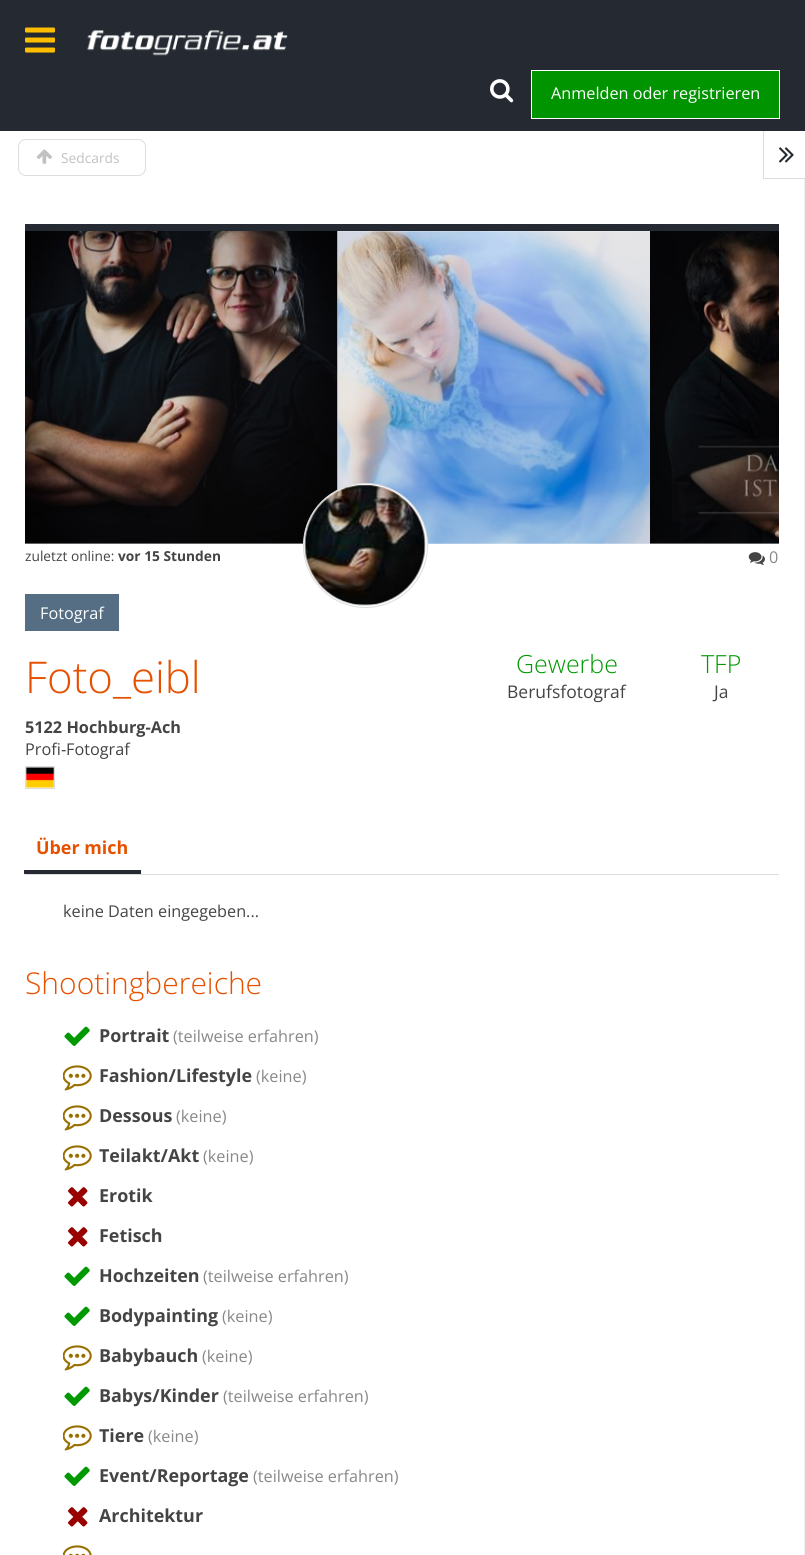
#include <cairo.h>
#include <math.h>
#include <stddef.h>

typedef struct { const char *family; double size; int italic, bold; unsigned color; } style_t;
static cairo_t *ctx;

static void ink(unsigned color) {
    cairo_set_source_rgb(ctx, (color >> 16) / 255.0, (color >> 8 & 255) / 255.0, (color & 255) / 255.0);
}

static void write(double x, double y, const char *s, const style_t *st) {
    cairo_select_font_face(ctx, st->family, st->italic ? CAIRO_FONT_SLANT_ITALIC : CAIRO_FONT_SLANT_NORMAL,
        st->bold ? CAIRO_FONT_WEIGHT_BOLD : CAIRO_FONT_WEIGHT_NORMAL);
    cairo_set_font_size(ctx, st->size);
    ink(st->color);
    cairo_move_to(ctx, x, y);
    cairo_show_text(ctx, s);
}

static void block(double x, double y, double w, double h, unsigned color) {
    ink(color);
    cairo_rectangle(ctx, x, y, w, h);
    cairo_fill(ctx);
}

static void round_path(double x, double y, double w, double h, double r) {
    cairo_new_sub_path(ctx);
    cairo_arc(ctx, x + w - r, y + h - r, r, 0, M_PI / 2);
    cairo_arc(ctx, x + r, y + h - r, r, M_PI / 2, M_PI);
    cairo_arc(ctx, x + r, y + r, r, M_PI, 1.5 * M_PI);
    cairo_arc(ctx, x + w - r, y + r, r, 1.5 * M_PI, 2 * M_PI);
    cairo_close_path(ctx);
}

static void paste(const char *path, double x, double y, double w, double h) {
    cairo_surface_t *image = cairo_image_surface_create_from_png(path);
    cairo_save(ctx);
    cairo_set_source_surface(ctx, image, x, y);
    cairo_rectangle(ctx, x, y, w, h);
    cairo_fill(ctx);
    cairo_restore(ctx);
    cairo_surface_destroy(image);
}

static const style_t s1 = {"Open Sans", 16.25, 0, 0, 0xffffff};
static const style_t s2 = {"Open Sans", 13.75, 0, 0, 0xc1c1c1};
static const style_t s3 = {"Open Sans", 13.75, 0, 0, 0x444444};
static const style_t s4 = {"Open Sans", 13.75, 0, 1, 0x444444};
static const style_t s5 = {"Open Sans", 16.25, 0, 0, 0x888888};
static const style_t s6 = {"Open Sans Light", 43.75, 0, 0, 0xe65100};
static const style_t s7 = {"Open Sans Light", 25, 0, 0, 0x009900};
static const style_t s8 = {"Open Sans", 17.5, 0, 0, 0x444444};
static const style_t s9 = {"Open Sans", 16.25, 0, 1, 0x444444};
static const style_t s10 = {"Open Sans", 16.25, 0, 0, 0x444444};
static const style_t s11 = {"Liberation Sans", 16.25, 0, 0, 0x444444};
static const style_t s12 = {"Open Sans", 17.9, 0, 1, 0xe65100};
static const style_t s13 = {"Open Sans Light", 30, 0, 0, 0xe65100};
static const style_t s14 = {"Open Sans", 17.9, 0, 1, 0x444444};

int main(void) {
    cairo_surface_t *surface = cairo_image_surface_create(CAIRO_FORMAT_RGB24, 805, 1555);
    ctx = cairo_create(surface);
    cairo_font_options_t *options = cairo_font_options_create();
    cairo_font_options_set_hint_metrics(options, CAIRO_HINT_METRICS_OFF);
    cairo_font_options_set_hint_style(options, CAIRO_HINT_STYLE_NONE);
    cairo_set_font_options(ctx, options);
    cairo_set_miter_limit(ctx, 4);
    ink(0x252a32);
    cairo_paint(ctx);
    paste("pic1.png", 25, 27, 30, 26);
    paste("pic2.png", 87, 30, 201, 26);
    paste("pic3.png", 490, 79, 24, 24);
    ink(0x009400);
    cairo_rectangle(ctx, 531.5, 70.5, 248, 48);
    cairo_fill_preserve(ctx);
    ink(0xffffff);
    cairo_set_line_width(ctx, 1);
    cairo_stroke(ctx);
    write(551, 99, "Anmelden oder registrieren", &s1);
    block(804, 179, 1, 1376, 0xf0f0f0);
    block(0, 131, 804, 1424, 0xffffff);
    round_path(18.5, 139.5, 127, 36, 7.5);
    ink(0xdddddd);
    cairo_stroke(ctx);
    paste("pic4.png", 36, 149, 16, 15);
    write(61, 163, "Sedcards", &s2);
    block(804, 131, 1, 47, 0xffffff);
    block(763, 178, 42, 1, 0xdddddd);
    block(763, 131, 1, 48, 0xdddddd);
    paste("pic5.png", 779, 147, 15, 16);
    block(25, 224, 754, 7, 0x252a32);
    paste("pic6.png", 25, 231, 313, 313);
    paste("pic7.png", 337, 231, 313, 313);
    paste("pic8.png", 650, 231, 129, 313);
    ink(0xffffff);
    cairo_arc(ctx, 365.5, 545.5, 62, 0, 2 * M_PI);
    cairo_fill_preserve(ctx);
    ink(0xdddddd);
    cairo_stroke(ctx);
    paste("pic9.png", 304, 484, 122, 122);
    write(25, 561, "zuletzt online:", &s3);
    write(118, 561, "vor 15 Stunden", &s4);
    paste("pic10.png", 748, 552, 17, 13);
    write(769, 563, "0", &s5);
    block(25, 594, 94, 37, 0x556e84);
    write(40, 619, "Fotograf", &s1);
    write(25, 693, "Foto_eibl", &s6);
    write(516, 673, "Gewerbe", &s7);
    write(507, 698, "Berufsfotograf", &s8);
    write(701, 673, "TFP", &s7);
    write(714, 698, "Ja", &s8);
    write(25, 733, "5122 Hochburg-Ach", &s9);
    write(25, 755, "Profi", &s10);
    write(61, 755, "‐", &s11);
    write(66, 755, "Fotograf", &s10);
    paste("pic11.png", 26, 767, 28, 21);
    cairo_rectangle(ctx, 25.5, 766.5, 29, 22);
    ink(0xdcdcdc);
    cairo_stroke(ctx);
    block(25, 874, 754, 1, 0xdddddd);
    block(24, 870, 117, 4, 0x252a32);
    write(36, 854, "Über mich", &s12);
    write(63, 917, "keine Daten eingegeben...", &s10);
    write(25, 994, "Shootingbereiche", &s13);
    paste("pic12.png", 64, 1026, 26, 20);
    write(99, 1042, "Portrait", &s14);
    write(173, 1042, "(teilweise erfahren)", &s5);
    paste("pic13.png", 63, 1065, 29, 26);
    write(99, 1082, "Fashion/Lifestyle", &s14);
    write(256, 1082, "(keine)", &s5);
    paste("pic13.png", 63, 1105, 29, 26);
    write(99, 1122, "Dessous", &s14);
    write(176, 1122, "(keine)", &s5);
    paste("pic13.png", 63, 1145, 29, 26);
    write(99, 1162, "Teilakt/Akt", &s14);
    write(203, 1162, "(keine)", &s5);
    paste("pic14.png", 68, 1187, 20, 20);
    write(99, 1202, "Erotik", &s14);
    paste("pic14.png", 68, 1227, 20, 20);
    write(99, 1242, "Fetisch", &s14);
    paste("pic12.png", 64, 1266, 26, 20);
    write(99, 1282, "Hochzeiten", &s14);
    write(203, 1282, "(teilweise erfahren)", &s5);
    paste("pic12.png", 64, 1306, 26, 20);
    write(99, 1322, "Bodypainting", &s14);
    write(222, 1322, "(keine)", &s5);
    paste("pic13.png", 63, 1345, 29, 26);
    write(99, 1362, "Babybauch", &s14);
    write(202, 1362, "(keine)", &s5);
    paste("pic12.png", 64, 1386, 26, 20);
    write(99, 1402, "Babys/Kinder", &s14);
    write(223, 1402, "(teilweise erfahren)", &s5);
    paste("pic13.png", 63, 1425, 29, 26);
    write(99, 1442, "Tiere", &s14);
    write(148, 1442, "(keine)", &s5);
    paste("pic12.png", 64, 1466, 26, 20);
    write(99, 1482, "Event/Reportage", &s14);
    write(253, 1482, "(teilweise erfahren)", &s5);
    paste("pic14.png", 68, 1507, 20, 20);
    write(99, 1522, "Architektur", &s14);
    paste("pic15.png", 63, 1545, 29, 10);
    cairo_surface_write_to_png(surface, "screenshot.png");
    cairo_font_options_destroy(options);
    cairo_destroy(ctx);
    cairo_surface_destroy(surface);
    return 0;
}
